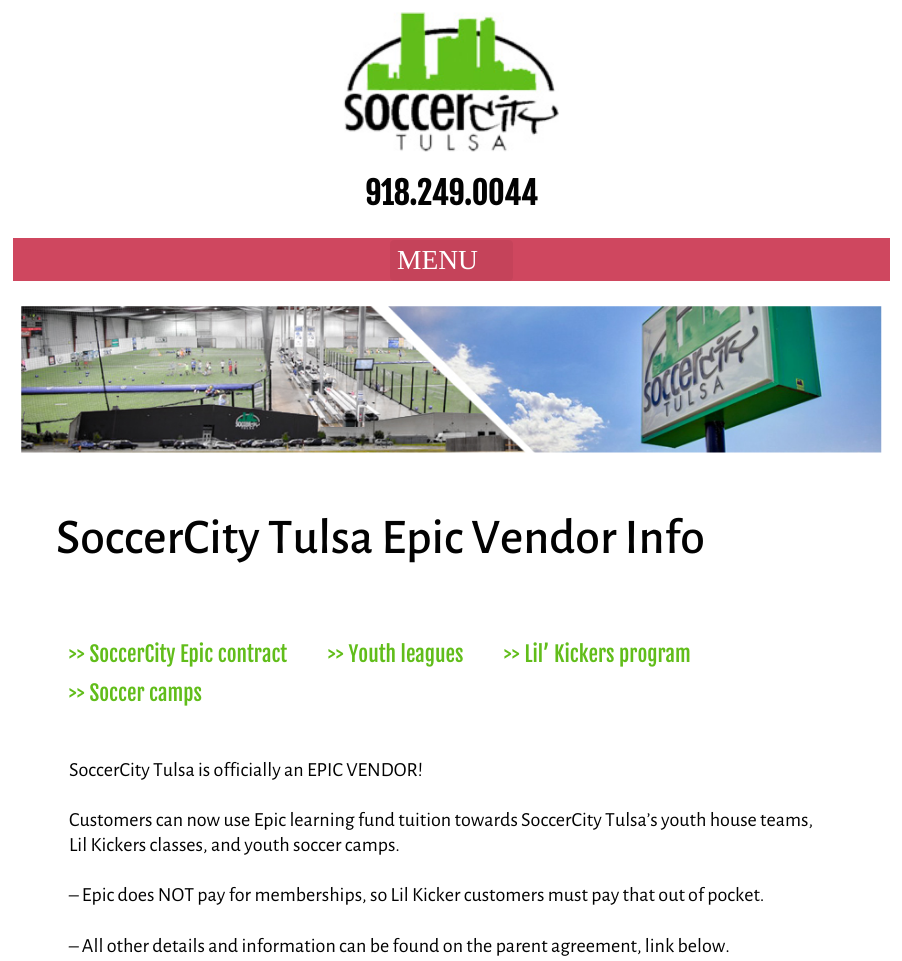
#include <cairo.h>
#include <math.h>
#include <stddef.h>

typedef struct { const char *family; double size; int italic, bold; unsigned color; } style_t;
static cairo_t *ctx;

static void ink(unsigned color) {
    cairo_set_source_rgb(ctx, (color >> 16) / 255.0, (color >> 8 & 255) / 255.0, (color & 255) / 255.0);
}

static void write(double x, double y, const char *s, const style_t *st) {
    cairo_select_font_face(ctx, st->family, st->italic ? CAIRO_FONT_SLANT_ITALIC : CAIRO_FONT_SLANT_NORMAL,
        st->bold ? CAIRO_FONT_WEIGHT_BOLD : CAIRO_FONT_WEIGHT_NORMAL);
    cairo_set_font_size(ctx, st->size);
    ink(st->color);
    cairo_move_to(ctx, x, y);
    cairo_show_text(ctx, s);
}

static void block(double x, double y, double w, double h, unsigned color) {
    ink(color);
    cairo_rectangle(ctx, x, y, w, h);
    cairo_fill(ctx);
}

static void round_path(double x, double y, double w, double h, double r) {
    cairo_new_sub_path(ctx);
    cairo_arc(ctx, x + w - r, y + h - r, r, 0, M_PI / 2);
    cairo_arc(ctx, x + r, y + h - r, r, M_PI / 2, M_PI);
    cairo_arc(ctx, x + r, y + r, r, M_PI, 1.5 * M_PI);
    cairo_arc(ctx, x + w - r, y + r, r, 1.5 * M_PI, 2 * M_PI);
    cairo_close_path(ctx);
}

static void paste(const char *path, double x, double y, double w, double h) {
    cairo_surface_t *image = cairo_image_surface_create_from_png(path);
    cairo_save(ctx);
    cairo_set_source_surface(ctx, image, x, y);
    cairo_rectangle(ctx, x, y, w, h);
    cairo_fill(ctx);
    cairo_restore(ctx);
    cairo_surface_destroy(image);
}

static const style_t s1 = {"Fjalla One", 31.25, 0, 1, 0x020202};
static const style_t s2 = {"Liberation Serif", 27.5, 0, 0, 0xffffff};
static const style_t s3 = {"Alegreya Sans Medium", 50, 0, 0, 0x020202};
static const style_t s4 = {"Fjalla One", 21.25, 0, 0, 0x61bd1a};
static const style_t s5 = {"Alegreya Sans", 20.05, 0, 0, 0x020202};

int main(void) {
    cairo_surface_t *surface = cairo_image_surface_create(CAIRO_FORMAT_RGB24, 902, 961);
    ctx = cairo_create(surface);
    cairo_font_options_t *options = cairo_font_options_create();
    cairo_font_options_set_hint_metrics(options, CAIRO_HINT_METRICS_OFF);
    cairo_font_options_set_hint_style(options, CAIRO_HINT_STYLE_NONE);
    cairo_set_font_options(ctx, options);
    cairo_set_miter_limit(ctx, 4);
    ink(0xffffff);
    cairo_paint(ctx);
    paste("pic1.png", 343, 12, 216, 140);
    write(365, 205, "918.249.0044", &s1);
    block(13, 238, 877, 43, 0xcf475f);
    ink(0xc5435a);
    round_path(390, 240, 123, 41, 4);
    cairo_fill(ctx);
    write(397, 269, "MENU ", &s2);
    paste("pic2.png", 21, 306, 861, 147);
    write(56, 553, "SoccerCity Tulsa Epic Vendor Info", &s3);
    write(69, 662, ">> SoccerCity Epic contract", &s4);
    write(328, 662, ">> Youth leagues", &s4);
    write(504, 662, ">> Lil’ Kickers program", &s4);
    write(69, 701, ">> Soccer camps", &s4);
    write(69, 776, "SoccerCity Tulsa is officially an EPIC VENDOR!", &s5);
    write(69, 826, "Customers can now use Epic learning fund tuition towards SoccerCity Tulsa’s youth house teams,", &s5);
    write(69, 851, "Lil Kickers classes, and youth soccer camps.", &s5);
    write(69, 901, "– Epic does NOT pay for memberships, so Lil Kicker customers must pay that out of pocket.", &s5);
    write(69, 952, "– All other details and information can be found on the parent agreement, link below.", &s5);
    cairo_surface_write_to_png(surface, "screenshot.png");
    cairo_font_options_destroy(options);
    cairo_destroy(ctx);
    cairo_surface_destroy(surface);
    return 0;
}
